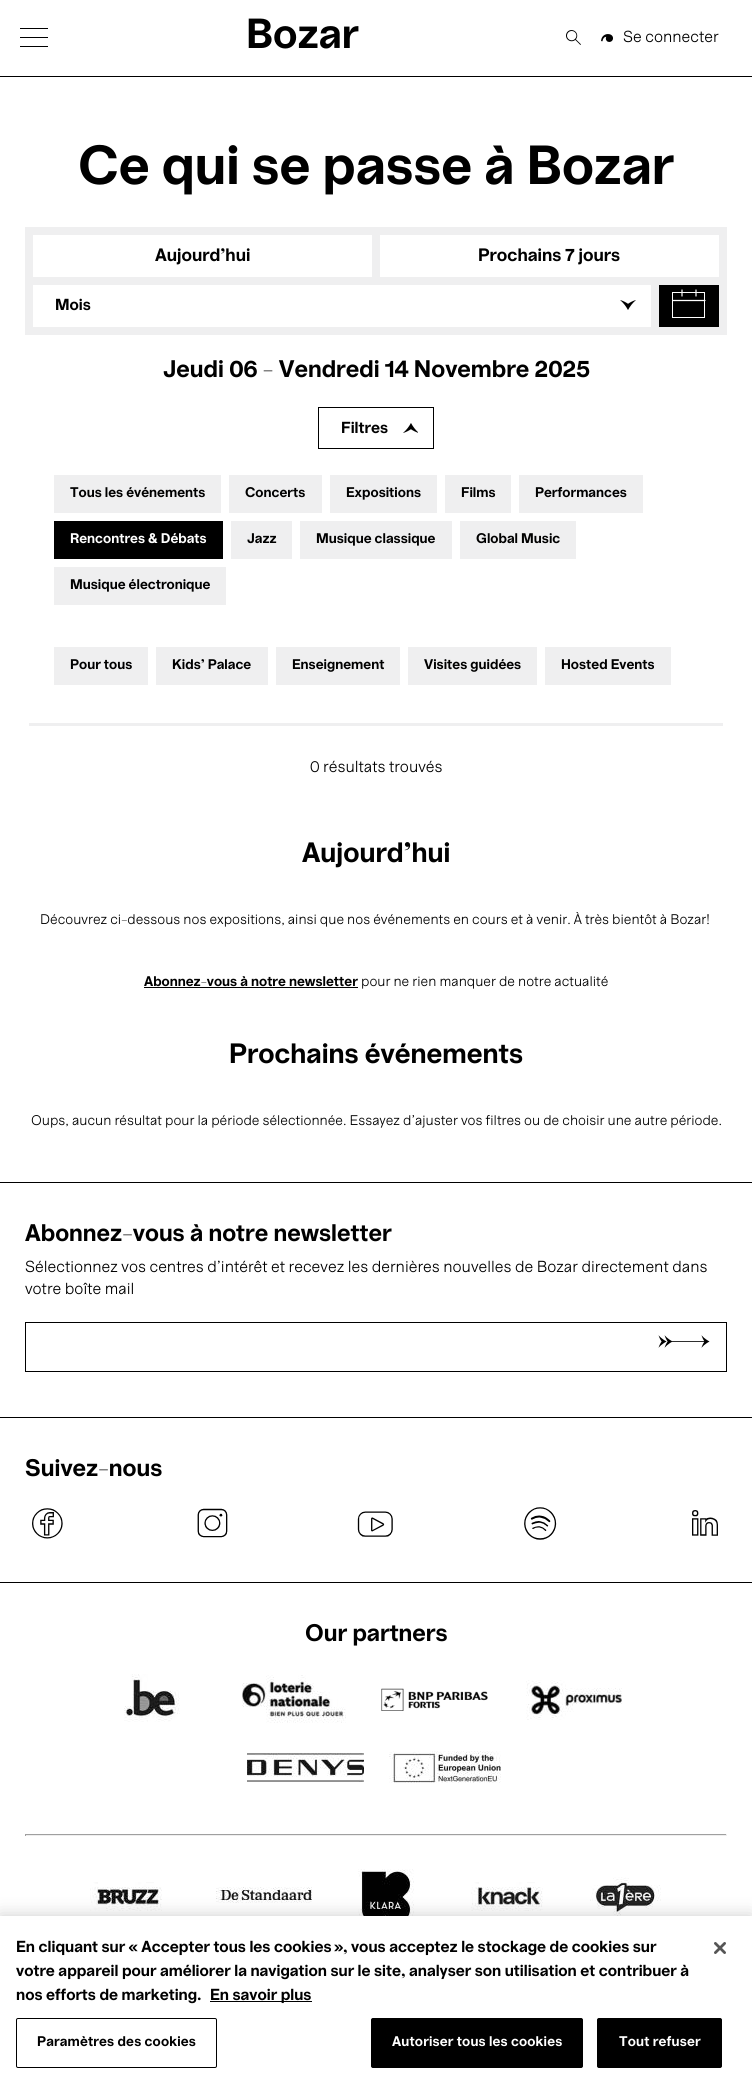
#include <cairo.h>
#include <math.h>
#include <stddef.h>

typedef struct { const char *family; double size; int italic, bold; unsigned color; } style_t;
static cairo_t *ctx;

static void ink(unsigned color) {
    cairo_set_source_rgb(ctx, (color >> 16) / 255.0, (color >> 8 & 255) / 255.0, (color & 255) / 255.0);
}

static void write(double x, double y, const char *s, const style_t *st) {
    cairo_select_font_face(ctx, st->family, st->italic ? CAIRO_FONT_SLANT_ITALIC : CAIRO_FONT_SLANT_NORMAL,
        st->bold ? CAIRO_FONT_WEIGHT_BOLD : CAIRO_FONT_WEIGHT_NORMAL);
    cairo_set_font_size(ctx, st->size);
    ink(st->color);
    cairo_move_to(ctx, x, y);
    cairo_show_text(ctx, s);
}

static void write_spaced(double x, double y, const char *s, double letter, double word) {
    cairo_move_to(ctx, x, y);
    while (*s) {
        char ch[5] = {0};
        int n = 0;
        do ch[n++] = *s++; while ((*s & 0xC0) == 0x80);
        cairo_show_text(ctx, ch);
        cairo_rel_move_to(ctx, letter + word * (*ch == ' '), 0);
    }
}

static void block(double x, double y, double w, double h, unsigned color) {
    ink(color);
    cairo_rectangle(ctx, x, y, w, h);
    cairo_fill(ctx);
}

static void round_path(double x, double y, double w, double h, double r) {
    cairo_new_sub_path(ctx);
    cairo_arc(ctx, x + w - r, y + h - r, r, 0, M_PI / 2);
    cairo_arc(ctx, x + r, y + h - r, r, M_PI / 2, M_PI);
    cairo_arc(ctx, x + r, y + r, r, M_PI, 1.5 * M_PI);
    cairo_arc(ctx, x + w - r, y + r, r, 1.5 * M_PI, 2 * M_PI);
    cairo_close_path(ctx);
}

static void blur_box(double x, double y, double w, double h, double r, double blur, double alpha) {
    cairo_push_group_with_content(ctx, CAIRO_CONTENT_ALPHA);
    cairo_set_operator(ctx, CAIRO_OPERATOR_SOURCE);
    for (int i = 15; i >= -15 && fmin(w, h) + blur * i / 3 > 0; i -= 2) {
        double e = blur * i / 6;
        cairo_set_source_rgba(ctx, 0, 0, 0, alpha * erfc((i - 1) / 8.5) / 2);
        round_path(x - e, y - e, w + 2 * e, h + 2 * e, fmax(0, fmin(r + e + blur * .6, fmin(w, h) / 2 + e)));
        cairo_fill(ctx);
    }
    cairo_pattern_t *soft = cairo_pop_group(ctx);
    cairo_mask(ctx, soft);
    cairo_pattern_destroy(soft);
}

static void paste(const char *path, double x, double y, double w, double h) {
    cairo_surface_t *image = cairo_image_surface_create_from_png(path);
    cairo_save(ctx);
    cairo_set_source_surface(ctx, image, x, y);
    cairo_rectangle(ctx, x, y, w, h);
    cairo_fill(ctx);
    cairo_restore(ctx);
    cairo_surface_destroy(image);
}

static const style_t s1 = {"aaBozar", 42, 0, 1, 0x000000};
static const style_t s2 = {"aaBozar", 16, 0, 0, 0x000000};
static const style_t s3 = {"aaBozar", 55, 0, 1, 0x000000};
static const style_t s4 = {"aaBozar", 18, 0, 1, 0x000000};
static const style_t s5 = {"aaBozar", 16, 0, 1, 0x000000};
static const style_t s6 = {"aaBozar", 24, 0, 1, 0x000000};
static const style_t s7 = {"aaBozar", 14, 0, 1, 0x000000};
static const style_t s8 = {"aaBozar", 14, 0, 1, 0xffffff};
static const style_t s9 = {"aaBozar", 28, 0, 1, 0x000000};
static const style_t s10 = {"aaBozar", 14, 0, 0, 0x000000};
static const style_t s11 = {"aaBozar", 30, 0, 1, 0x000000};

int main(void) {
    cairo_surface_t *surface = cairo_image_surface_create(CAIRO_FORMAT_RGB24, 752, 2084);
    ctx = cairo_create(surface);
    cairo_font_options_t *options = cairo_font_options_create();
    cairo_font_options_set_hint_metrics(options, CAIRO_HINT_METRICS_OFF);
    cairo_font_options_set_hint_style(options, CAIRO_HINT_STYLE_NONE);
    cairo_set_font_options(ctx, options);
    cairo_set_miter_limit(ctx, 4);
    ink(0xffffff);
    cairo_paint(ctx);
    block(0, 76, 752, 1, 0x000000);
    block(20, 28, 28, 1, 0x000000);
    block(20, 37, 28, 1, 0x000000);
    block(20, 46, 28, 1, 0x000000);
    write(246, 48, "Bozar", &s1);
    paste("pic1.png", 566, 30, 15, 15);
    paste("pic2.png", 601, 34, 12, 8);
    write(623, 42, "Se connecter", &s2);
    write(78, 184, "Ce qui se passe à Bozar", &s3);
    block(25, 227, 702, 108, 0xefeff0);
    block(33, 235, 339, 42, 0xffffff);
    write(155, 261, "Aujourd'hui", &s4);
    block(380, 235, 339, 42, 0xffffff);
    write(478, 261, "Prochains 7 jours", &s4);
    block(33, 285, 618, 42, 0xffffff);
    write(55, 310, "Mois", &s5);
    paste("pic3.png", 620, 300, 16, 10);
    block(659, 285, 60, 42, 0x000000);
    cairo_rectangle(ctx, 672.5, 292.5, 32, 25);
    ink(0xffffff);
    cairo_set_line_width(ctx, 1);
    cairo_stroke(ctx);
    cairo_new_path(ctx);
    cairo_move_to(ctx, 673, 300.5);
    cairo_line_to(ctx, 705, 300.5);
    cairo_move_to(ctx, 696, 290);
    cairo_line_to(ctx, 696, 296);
    cairo_move_to(ctx, 682, 290);
    cairo_line_to(ctx, 682, 296);
    cairo_set_line_width(ctx, 1.2);
    cairo_set_line_cap(ctx, CAIRO_LINE_CAP_ROUND);
    cairo_set_line_join(ctx, CAIRO_LINE_JOIN_ROUND);
    cairo_stroke(ctx);
    write(163, 377, "Jeudi 06 - Vendredi 14 Novembre 2025", &s6);
    cairo_rectangle(ctx, 318.5, 407.5, 115, 41);
    cairo_set_line_width(ctx, 1);
    cairo_set_line_cap(ctx, CAIRO_LINE_CAP_BUTT);
    cairo_set_line_join(ctx, CAIRO_LINE_JOIN_MITER);
    cairo_stroke(ctx);
    write(341, 433, "Filtres", &s5);
    paste("pic4.png", 403, 423, 15, 10);
    block(54, 475, 167, 38, 0xefeff0);
    write(70, 497, "Tous les événements", &s7);
    block(229, 475, 93, 38, 0xefeff0);
    write(245, 497, "Concerts", &s7);
    block(330, 475, 107, 38, 0xefeff0);
    write(346, 497, "Expositions", &s7);
    block(445, 475, 66, 38, 0xefeff0);
    write(461, 497, "Films", &s7);
    block(519, 475, 124, 38, 0xefeff0);
    write(535, 497, "Performances", &s7);
    block(54, 521, 169, 38, 0x000000);
    write(70, 543, "Rencontres & Débats", &s8);
    block(231, 521, 61, 38, 0xefeff0);
    write(247, 543, "Jazz", &s7);
    block(300, 521, 152, 38, 0xefeff0);
    write(316, 543, "Musique classique", &s7);
    block(460, 521, 116, 38, 0xefeff0);
    write(476, 543, "Global Music", &s7);
    block(54, 567, 172, 38, 0xefeff0);
    write(70, 589, "Musique électronique", &s7);
    block(54, 647, 94, 38, 0xefeff0);
    write(70, 669, "Pour tous", &s7);
    block(156, 647, 112, 38, 0xefeff0);
    write(172, 669, "Kids’ Palace", &s7);
    block(276, 647, 124, 38, 0xefeff0);
    write(292, 669, "Enseignement", &s7);
    block(408, 647, 129, 38, 0xefeff0);
    write(424, 669, "Visites guidées", &s7);
    block(545, 647, 126, 38, 0xefeff0);
    write(561, 669, "Hosted Events", &s7);
    block(29, 723, 694, 3, 0xefeff0);
    write(310, 772, "0 résultats trouvés", &s2);
    write(302, 862, "Aujourd'hui", &s9);
    write(40, 924, "Découvrez ci-dessous nos expositions, ainsi que nos événements en cours et à venir. À très bientôt à Bozar !", &s10);
    write(144, 986, "Abonnez-vous à notre newsletter", &s7);
    block(144, 987, 214, 1, 0x000000);
    write(361, 986, "pour ne rien manquer de notre actualité", &s10);
    write(229, 1063, "Prochains événements", &s9);
    write(31, 1125, "Oups, aucun résultat pour la période sélectionnée. Essayez d’ajuster vos filtres ou de choisir une autre période.", &s10);
    block(0, 1182, 752, 1, 0x000000);
    block(0, 1582, 752, 1, 0x000000);
    write(25, 1241, "Abonnez-vous à notre newsletter", &s6);
    write(25, 1272, "Sélectionnez vos centres d'intérêt et recevez les dernières nouvelles de Bozar directement dans", &s2);
    write(25, 1294, "votre boîte mail", &s2);
    cairo_rectangle(ctx, 25.5, 1322.5, 701, 49);
    cairo_stroke(ctx);
    write(654, 1352, "→", &s11);
    block(0, 1417, 752, 1, 0x000000);
    write(25, 1476, "Suivez-nous", &s6);
    paste("pic5.png", 32, 1508, 31, 31);
    paste("pic6.png", 197, 1508, 31, 30);
    paste("pic7.png", 357, 1511, 36, 26);
    paste("pic8.png", 524, 1507, 33, 33);
    paste("pic9.png", 692, 1510, 26, 26);
    write(305, 1641, "Our partners", &s6);
    paste("pic10.png", 124, 1674, 56, 48);
    paste("pic11.png", 242, 1675, 104, 48);
    paste("pic12.png", 381, 1688, 107, 23);
    paste("pic13.png", 526, 1680, 96, 40);
    paste("pic14.png", 247, 1753, 117, 29);
    paste("pic15.png", 389, 1751, 112, 32);
    block(25, 1834, 702, 1, 0x9f9f9f);
    block(726, 1834, 1, 2, 0xeeeeee);
    block(25, 1835, 702, 1, 0xeeeeee);
    block(25, 1834, 1, 2, 0x9f9f9f);
    paste("pic16.png", 90, 1882, 72, 29);
    paste("pic17.png", 216, 1887, 96, 16);
    paste("pic18.png", 358, 1869, 56, 47);
    paste("pic19.png", 471, 1882, 72, 29);
    paste("pic20.png", 590, 1877, 71, 39);
    ink(0x000000);
    blur_box(0, 1916, 752, 168, 0, 9, 0.2);
    block(0, 1916, 752, 168, 0xffffff);
    write(16, 1952, "En cliquant sur « Accepter tous les cookies », vous acceptez le stockage de cookies sur", &s5);
    write(16, 1976, "votre appareil pour améliorer la navigation sur le site, analyser son utilisation et contribuer à", &s5);
    write(16, 2000, "nos efforts de marketing.", &s5);
    block(210, 2001, 102, 1, 0x000000);
    write(210, 2000, "En savoir plus", &s5);
    round_path(16.5, 2018.5, 200, 49, 1.5);
    cairo_stroke(ctx);
    cairo_set_font_size(ctx, 14);
    write_spaced(37, 2046, "Paramètres des cookies", 0.15, 0);
    round_path(371.5, 2018.5, 211, 49, 1.5);
    cairo_fill_preserve(ctx);
    cairo_stroke(ctx);
    ink(0xffffff);
    write_spaced(392, 2046, "Autoriser tous les cookies", 0.15, 0);
    ink(0x000000);
    round_path(597.5, 2018.5, 124, 49, 1.5);
    cairo_fill_preserve(ctx);
    cairo_stroke(ctx);
    ink(0xffffff);
    write_spaced(619, 2046, "Tout refuser", 0.15, 0);
    paste("pic21.png", 714, 1942, 12, 12);
    cairo_surface_write_to_png(surface, "screenshot.png");
    cairo_font_options_destroy(options);
    cairo_destroy(ctx);
    cairo_surface_destroy(surface);
    return 0;
}
